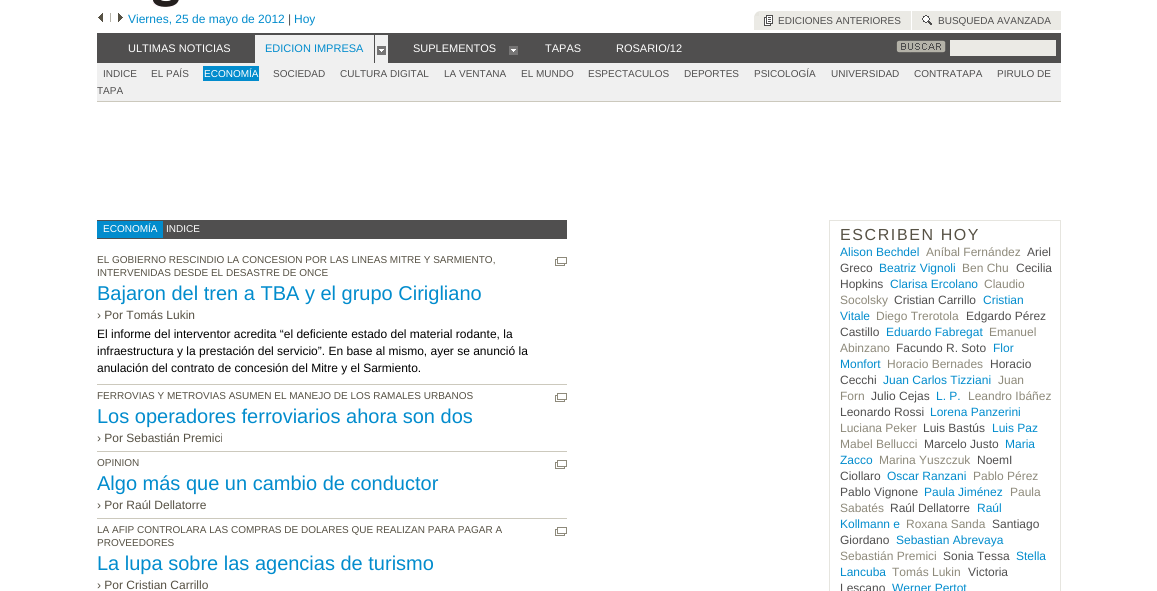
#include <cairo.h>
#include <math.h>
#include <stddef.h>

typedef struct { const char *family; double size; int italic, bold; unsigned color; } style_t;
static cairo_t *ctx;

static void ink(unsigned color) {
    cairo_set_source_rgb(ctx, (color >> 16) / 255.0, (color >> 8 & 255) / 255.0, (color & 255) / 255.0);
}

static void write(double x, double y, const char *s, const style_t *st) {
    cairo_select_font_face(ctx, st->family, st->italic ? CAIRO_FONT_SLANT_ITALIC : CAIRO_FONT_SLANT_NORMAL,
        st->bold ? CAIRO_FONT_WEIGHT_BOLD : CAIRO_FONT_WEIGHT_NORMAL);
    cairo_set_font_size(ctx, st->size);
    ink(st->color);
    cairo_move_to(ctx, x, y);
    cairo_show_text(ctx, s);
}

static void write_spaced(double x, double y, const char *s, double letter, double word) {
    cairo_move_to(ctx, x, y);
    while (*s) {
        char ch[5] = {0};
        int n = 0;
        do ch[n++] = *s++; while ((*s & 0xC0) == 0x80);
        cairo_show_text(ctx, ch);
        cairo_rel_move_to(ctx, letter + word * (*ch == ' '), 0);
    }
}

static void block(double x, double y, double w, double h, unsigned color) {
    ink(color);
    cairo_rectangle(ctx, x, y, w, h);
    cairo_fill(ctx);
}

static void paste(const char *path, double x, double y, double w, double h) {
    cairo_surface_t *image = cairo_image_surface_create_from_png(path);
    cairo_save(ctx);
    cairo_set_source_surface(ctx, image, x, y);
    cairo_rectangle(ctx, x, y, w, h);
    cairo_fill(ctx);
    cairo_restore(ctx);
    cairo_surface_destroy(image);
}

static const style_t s1 = {"Liberation Sans", 12, 0, 0, 0x028ccd};
static const style_t s2 = {"Liberation Sans", 12, 0, 0, 0x504f4f};
static const style_t s3 = {"Liberation Sans", 10, 0, 0, 0x504f4f};
static const style_t s4 = {"Liberation Sans", 11, 0, 0, 0xffffff};
static const style_t s5 = {"Liberation Sans", 11, 0, 0, 0x028ccd};
static const style_t s6 = {"Liberation Sans", 10, 0, 0, 0xffffff};
static const style_t s7 = {"Liberation Sans", 10, 0, 0, 0x565144};
static const style_t s8 = {"Liberation Sans", 20, 0, 0, 0x028ccd};
static const style_t s9 = {"Liberation Sans", 12, 0, 0, 0x565144};
static const style_t s10 = {"Liberation Sans", 12, 0, 0, 0x000000};
static const style_t s11 = {"Liberation Sans", 12, 0, 0, 0x8e8a7b};

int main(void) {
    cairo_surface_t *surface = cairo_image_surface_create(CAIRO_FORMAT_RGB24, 1157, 591);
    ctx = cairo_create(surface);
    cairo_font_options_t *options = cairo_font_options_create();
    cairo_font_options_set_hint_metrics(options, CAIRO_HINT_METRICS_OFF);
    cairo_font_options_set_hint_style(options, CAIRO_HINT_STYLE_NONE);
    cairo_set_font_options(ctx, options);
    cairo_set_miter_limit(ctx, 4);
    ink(0xffffff);
    cairo_paint(ctx);
    paste("pic1.png", 152, 0, 27, 7);
    paste("pic2.png", 98, 13, 5, 9);
    block(110, 13, 1, 9, 0xb4b2a8);
    paste("pic3.png", 118, 13, 5, 9);
    write(128, 23, "Viernes, 25 de mayo de 2012", &s1);
    write(288, 23, "|", &s2);
    write(294, 23, "Hoy", &s1);
    block(754, 11, 157, 19, 0xebeae5);
    paste("pic4.png", 754, 11, 5, 5);
    paste("pic5.png", 764, 15, 9, 11);
    write(778, 24, "EDICIONES ANTERIORES", &s3);
    block(912, 11, 149, 19, 0xebeae5);
    paste("pic6.png", 922, 15, 10, 10);
    write(938, 24, "BUSQUEDA AVANZADA", &s3);
    block(97, 33, 964, 30, 0x504f4f);
    write(128, 52, "ULTIMAS NOTICIAS", &s4);
    block(255, 35, 119, 28, 0xf0f0f0);
    write(265, 52, "EDICION IMPRESA", &s5);
    block(375, 35, 13, 28, 0xf0f0f0);
    paste("pic7.png", 377, 46, 9, 9);
    write(413, 52, "SUPLEMENTOS", &s4);
    paste("pic7.png", 509, 46, 9, 9);
    write(545, 52, "TAPAS", &s4);
    write(616, 52, "ROSARIO/12", &s4);
    paste("pic8.png", 896, 40, 50, 13);
    block(950, 40, 106, 16, 0xebeae5);
    block(97, 63, 964, 38, 0xf0f0f0);
    block(97, 101, 964, 1, 0xccc9bd);
    write(103, 77, "INDICE", &s3);
    write(151, 77, "EL PAÍS", &s3);
    block(203, 66, 56, 15, 0x028ccd);
    write(204, 77, "ECONOMÍA", &s6);
    write(273, 77, "SOCIEDAD", &s3);
    write(340, 77, "CULTURA DIGITAL", &s3);
    write(444, 77, "LA VENTANA", &s3);
    write(521, 77, "EL MUNDO", &s3);
    write(588, 77, "ESPECTACULOS", &s3);
    write(684, 77, "DEPORTES", &s3);
    write(754, 77, "PSICOLOGÍA", &s3);
    write(831, 77, "UNIVERSIDAD", &s3);
    write(914, 77, "CONTRATAPA", &s3);
    write(997, 77, "PIRULO DE", &s3);
    write(97, 94, "TAPA", &s3);
    block(97, 220, 470, 19, 0x504f4f);
    block(97, 221, 66, 17, 0x028ccd);
    write(103, 232, "ECONOMÍA", &s6);
    write(166, 232, "INDICE", &s6);
    block(97, 384, 470, 1, 0xccc9bd);
    write(97, 263, "EL GOBIERNO RESCINDIO LA CONCESION POR LAS LINEAS MITRE Y SARMIENTO,", &s7);
    write(97, 276, "INTERVENIDAS DESDE EL DESASTRE DE ONCE", &s7);
    paste("pic9.png", 555, 257, 12, 9);
    write(97, 300, "Bajaron del tren a TBA y el grupo Cirigliano", &s8);
    write(97, 319, "› Por Tomás Lukin", &s9);
    write(97, 338, "El informe del interventor acredita “el deficiente estado del material rodante, la", &s10);
    write(97, 355, "infraestructura y la prestación del servicio”. En base al mismo, ayer se anunció la", &s10);
    write(97, 372, "anulación del contrato de concesión del Mitre y el Sarmiento.", &s10);
    block(97, 451, 470, 1, 0xccc9bd);
    write(97, 399, "FERROVIAS Y METROVIAS ASUMEN EL MANEJO DE LOS RAMALES URBANOS", &s7);
    paste("pic9.png", 555, 393, 12, 9);
    write(97, 423, "Los operadores ferroviarios ahora son dos", &s8);
    write(97, 442, "› Por Sebastián Premici", &s9);
    block(97, 518, 470, 1, 0xccc9bd);
    write(97, 466, "OPINION", &s7);
    paste("pic9.png", 555, 460, 12, 9);
    write(97, 490, "Algo más que un cambio de conductor", &s8);
    write(97, 509, "› Por Raúl Dellatorre", &s9);
    write(97, 533, "LA AFIP CONTROLARA LAS COMPRAS DE DOLARES QUE REALIZAN PARA PAGAR A", &s7);
    write(97, 546, "PROVEEDORES", &s7);
    paste("pic9.png", 555, 527, 12, 9);
    write(97, 570, "La lupa sobre las agencias de turismo", &s8);
    write(97, 589, "› Por Cristian Carrillo", &s9);
    cairo_rectangle(ctx, 829.5, 220.5, 231, 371);
    ink(0xe6e5df);
    cairo_set_line_width(ctx, 1);
    cairo_stroke(ctx);
    cairo_set_font_size(ctx, 16);
    ink(0x565144);
    write_spaced(840, 240, "ESCRIBEN HOY", 1.6, 0);
    write(840, 256, "Alison Bechdel", &s1);
    write(926, 256, "Aníbal Fernández", &s11);
    write(1027, 256, "Ariel", &s2);
    write(840, 272, "Greco", &s2);
    write(879, 272, "Beatriz Vignoli", &s1);
    write(962, 272, "Ben Chu", &s11);
    write(1016, 272, "Cecilia", &s2);
    write(840, 288, "Hopkins", &s2);
    write(890, 288, "Clarisa Ercolano", &s1);
    write(984, 288, "Claudio", &s11);
    write(840, 304, "Socolsky", &s11);
    write(894, 304, "Cristian Carrillo", &s2);
    write(983, 304, "Cristian", &s1);
    write(840, 320, "Vitale", &s1);
    write(876, 320, "Diego Trerotola", &s11);
    write(966, 320, "Edgardo Pérez", &s2);
    write(840, 336, "Castillo", &s2);
    write(886, 336, "Eduardo Fabregat", &s1);
    write(989, 336, "Emanuel", &s11);
    write(840, 352, "Abinzano", &s11);
    write(896, 352, "Facundo R. Soto", &s2);
    write(993, 352, "Flor", &s1);
    write(840, 368, "Monfort", &s1);
    write(887, 368, "Horacio Bernades", &s11);
    write(990, 368, "Horacio", &s2);
    write(840, 384, "Cecchi", &s2);
    write(883, 384, "Juan Carlos Tizziani", &s1);
    write(998, 384, "Juan", &s11);
    write(840, 400, "Forn", &s11);
    write(871, 400, "Julio Cejas", &s2);
    write(936, 400, "L. P.", &s1);
    write(968, 400, "Leandro Ibáñez", &s11);
    write(840, 416, "Leonardo Rossi", &s2);
    write(930, 416, "Lorena Panzerini", &s1);
    write(840, 432, "Luciana Peker", &s11);
    write(923, 432, "Luis Bastús", &s2);
    write(992, 432, "Luis Paz", &s1);
    write(840, 448, "Mabel Bellucci", &s11);
    write(924, 448, "Marcelo Justo", &s2);
    write(1005, 448, "Maria", &s1);
    write(840, 464, "Zacco", &s1);
    write(879, 464, "Marina Yuszczuk", &s11);
    write(977, 464, "NoemI", &s2);
    write(840, 480, "Ciollaro", &s2);
    write(887, 480, "Oscar Ranzani", &s1);
    write(973, 480, "Pablo Pérez", &s11);
    write(840, 496, "Pablo Vignone", &s2);
    write(924, 496, "Paula Jiménez", &s1);
    write(1010, 496, "Paula", &s11);
    write(840, 512, "Sabatés", &s11);
    write(890, 512, "Raúl Dellatorre", &s2);
    write(977, 512, "Raúl", &s1);
    write(840, 528, "Kollmann e", &s1);
    write(906, 528, "Roxana Sanda", &s11);
    write(992, 528, "Santiago", &s2);
    write(840, 544, "Giordano", &s2);
    write(896, 544, "Sebastian Abrevaya", &s1);
    write(840, 560, "Sebastián Premici", &s11);
    write(943, 560, "Sonia Tessa", &s2);
    write(1016, 560, "Stella", &s1);
    write(840, 576, "Lancuba", &s1);
    write(892, 576, "Tomás Lukin", &s11);
    write(968, 576, "Victoria", &s2);
    write(840, 592, "Lescano", &s2);
    write(892, 592, "Werner Pertot", &s1);
    cairo_surface_write_to_png(surface, "screenshot.png");
    cairo_font_options_destroy(options);
    cairo_destroy(ctx);
    cairo_surface_destroy(surface);
    return 0;
}
